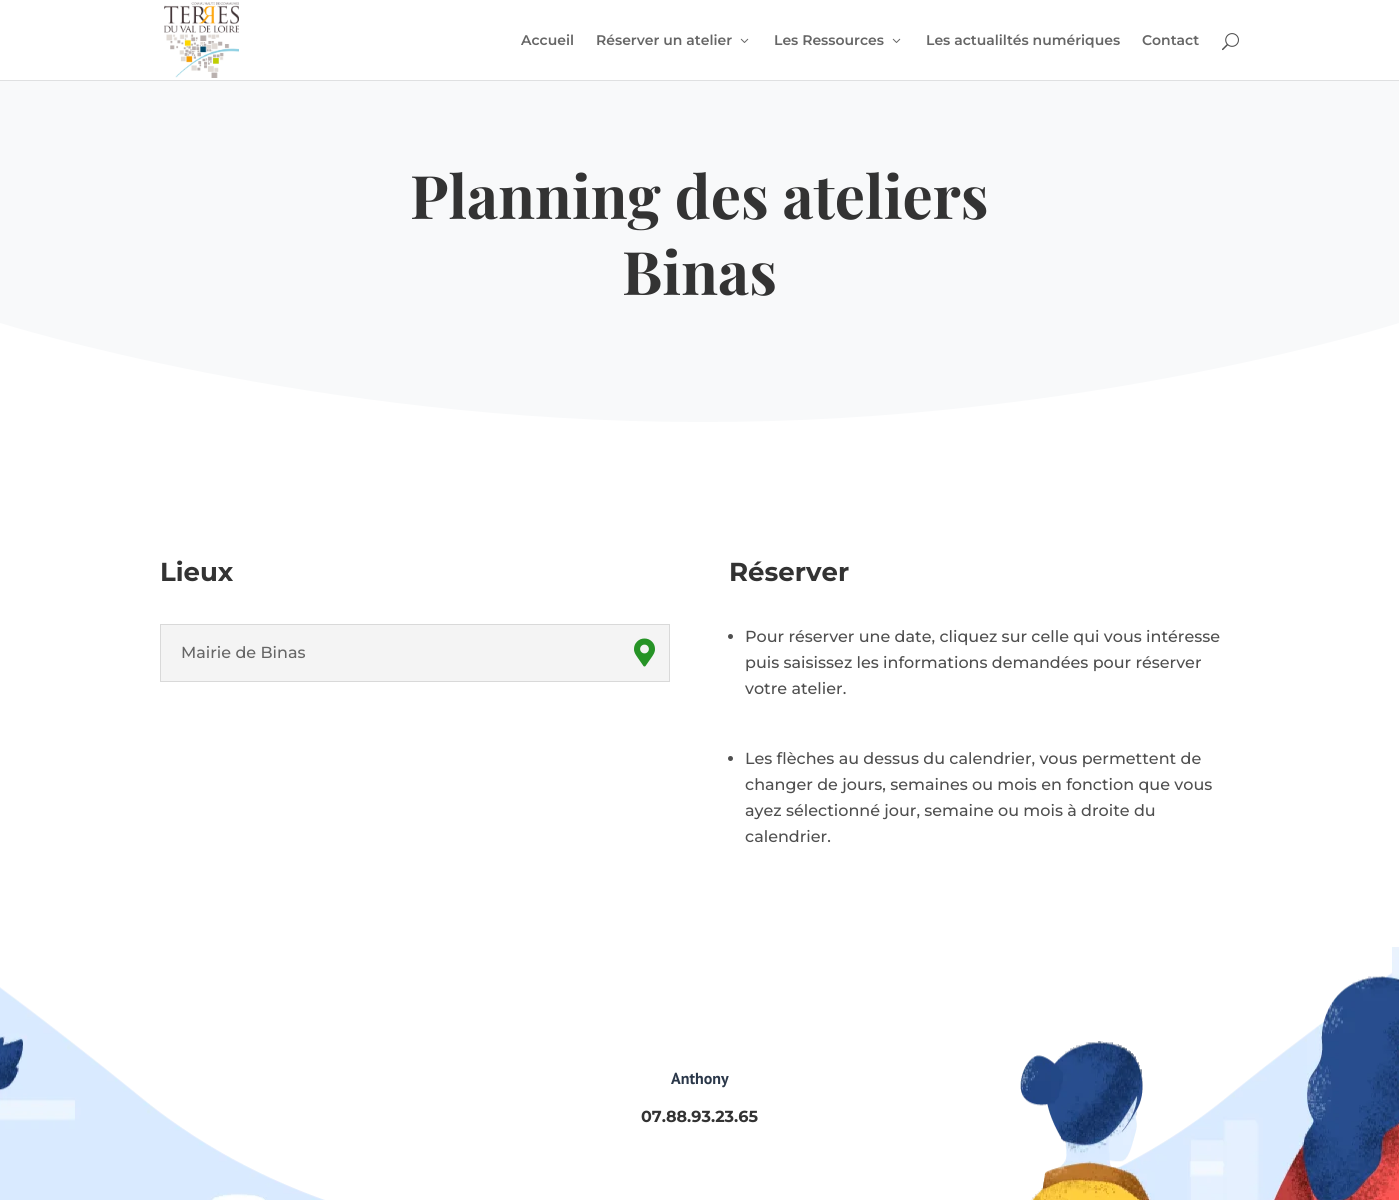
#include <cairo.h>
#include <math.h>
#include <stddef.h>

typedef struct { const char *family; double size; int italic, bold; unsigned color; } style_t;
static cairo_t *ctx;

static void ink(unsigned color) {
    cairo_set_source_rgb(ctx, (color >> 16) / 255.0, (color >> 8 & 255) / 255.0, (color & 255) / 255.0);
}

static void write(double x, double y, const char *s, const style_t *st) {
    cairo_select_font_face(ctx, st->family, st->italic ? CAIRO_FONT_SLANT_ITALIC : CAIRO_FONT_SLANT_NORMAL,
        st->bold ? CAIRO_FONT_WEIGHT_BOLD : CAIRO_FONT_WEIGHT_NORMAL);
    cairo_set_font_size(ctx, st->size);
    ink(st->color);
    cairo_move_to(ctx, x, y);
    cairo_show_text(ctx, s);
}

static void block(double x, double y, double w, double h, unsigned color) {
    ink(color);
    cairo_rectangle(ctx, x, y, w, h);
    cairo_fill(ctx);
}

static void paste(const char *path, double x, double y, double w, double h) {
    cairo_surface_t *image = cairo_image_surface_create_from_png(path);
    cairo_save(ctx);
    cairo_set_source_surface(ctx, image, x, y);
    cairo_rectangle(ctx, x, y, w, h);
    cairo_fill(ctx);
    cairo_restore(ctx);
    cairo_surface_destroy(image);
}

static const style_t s1 = {"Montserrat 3 Thin", 14, 0, 0, 0x666666};
static const style_t s2 = {"Playfair Display", 60, 0, 1, 0x333333};
static const style_t s3 = {"Montserrat Thin", 26, 0, 0, 0x333333};
static const style_t s4 = {"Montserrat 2 Thin", 16, 0, 0, 0x666666};
static const style_t s5 = {"Montserrat 2 Thin", 16, 0, 0, 0x4f4f4f};
static const style_t s6 = {"PT Sans", 16, 0, 1, 0x2a3749};
static const style_t s7 = {"Montserrat Thin", 16, 0, 0, 0x333333};

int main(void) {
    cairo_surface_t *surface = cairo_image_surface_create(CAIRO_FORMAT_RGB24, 1399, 1200);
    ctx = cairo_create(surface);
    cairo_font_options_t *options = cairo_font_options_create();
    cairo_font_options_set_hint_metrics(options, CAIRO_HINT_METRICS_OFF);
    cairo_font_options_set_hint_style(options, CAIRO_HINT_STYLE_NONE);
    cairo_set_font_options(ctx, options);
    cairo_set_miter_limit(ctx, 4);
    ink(0xffffff);
    cairo_paint(ctx);
    block(0, 80, 1399, 1, 0xdfe0e1);
    paste("pic1.png", 164, 2, 75, 76);
    write(521, 45, "Accueil", &s1);
    write(596, 45, "Réserver un atelier", &s1);
    paste("pic2.png", 740, 38, 9, 5);
    write(774, 45, "Les Ressources", &s1);
    paste("pic2.png", 892, 38, 9, 5);
    write(926, 45, "Les actualiltés numériques", &s1);
    write(1142, 45, "Contact", &s1);
    paste("pic3.png", 1222, 33, 17, 18);
    block(0, 81, 1399, 341, 0xf8f9fa);
    write(410, 219, "Planning des ateliers", &s2);
    write(622, 295, "Binas", &s2);
    ink(0xffffff);
    cairo_new_path(ctx);
    cairo_move_to(ctx, 1399, 423);
    cairo_line_to(ctx, 1399, 323);
    cairo_curve_to(ctx, 1399, 323, 1086, 423, 700, 422);
    cairo_curve_to(ctx, 313, 422, 0, 323, 0, 323);
    cairo_line_to(ctx, 0, 423);
    cairo_close_path(ctx);
    cairo_fill(ctx);
    write(160, 581, "Lieux", &s3);
    ink(0xf4f4f4);
    cairo_rectangle(ctx, 160.5, 624.5, 509, 57);
    cairo_fill_preserve(ctx);
    ink(0xd9d9d9);
    cairo_set_line_width(ctx, 1);
    cairo_stroke(ctx);
    write(181, 658, "Mairie de Binas", &s4);
    paste("pic4.png", 634, 638, 21, 29);
    write(729, 581, "Réserver", &s3);
    ink(0x4f4f4f);
    cairo_new_path(ctx);
    cairo_arc(ctx, 730.5, 636.5, 2.5, 0, 2 * M_PI);
    cairo_fill(ctx);
    write(745, 642, "Pour réserver une date, cliquez sur celle qui vous intéresse", &s5);
    write(745, 668, "puis saisissez les informations demandées pour réserver", &s5);
    write(745, 694, "votre atelier.", &s5);
    cairo_new_path(ctx);
    cairo_arc(ctx, 730.5, 758.5, 2.5, 0, 2 * M_PI);
    cairo_fill(ctx);
    write(745, 764, "Les flèches au dessus du calendrier, vous permettent de", &s5);
    write(745, 790, "changer de jours, semaines ou mois en fonction que vous", &s5);
    write(745, 816, "ayez sélectionné jour, semaine ou mois à droite du", &s5);
    write(745, 842, "calendrier.", &s5);
    paste("pic5.png", 0, 947, 1399, 253);
    write(671, 1084, "Anthony", &s6);
    write(641, 1122, "07.88.93.23.65", &s7);
    cairo_surface_write_to_png(surface, "screenshot.png");
    cairo_font_options_destroy(options);
    cairo_destroy(ctx);
    cairo_surface_destroy(surface);
    return 0;
}
